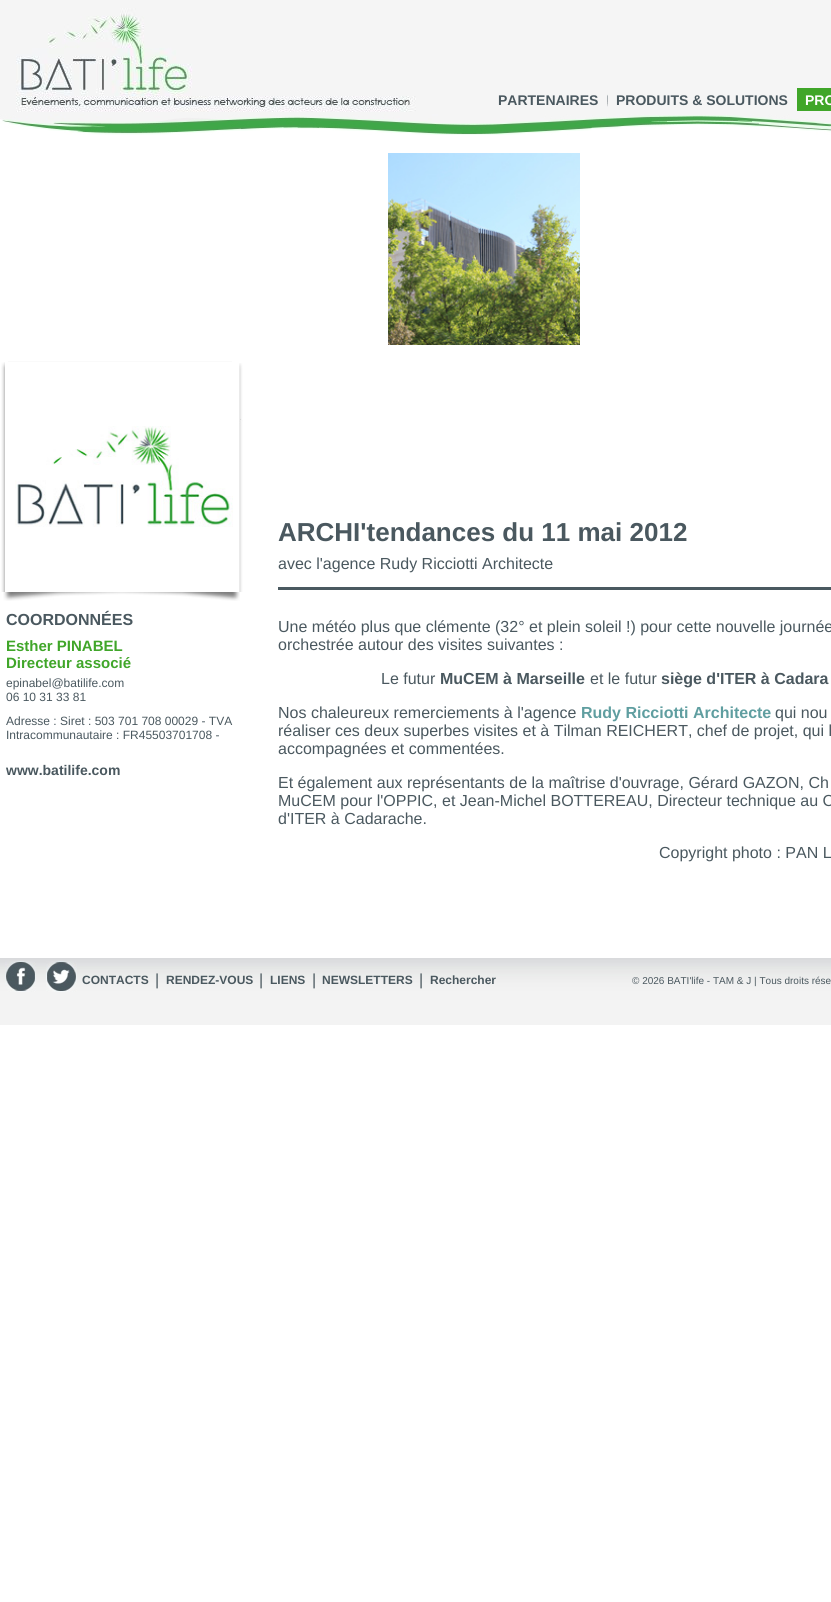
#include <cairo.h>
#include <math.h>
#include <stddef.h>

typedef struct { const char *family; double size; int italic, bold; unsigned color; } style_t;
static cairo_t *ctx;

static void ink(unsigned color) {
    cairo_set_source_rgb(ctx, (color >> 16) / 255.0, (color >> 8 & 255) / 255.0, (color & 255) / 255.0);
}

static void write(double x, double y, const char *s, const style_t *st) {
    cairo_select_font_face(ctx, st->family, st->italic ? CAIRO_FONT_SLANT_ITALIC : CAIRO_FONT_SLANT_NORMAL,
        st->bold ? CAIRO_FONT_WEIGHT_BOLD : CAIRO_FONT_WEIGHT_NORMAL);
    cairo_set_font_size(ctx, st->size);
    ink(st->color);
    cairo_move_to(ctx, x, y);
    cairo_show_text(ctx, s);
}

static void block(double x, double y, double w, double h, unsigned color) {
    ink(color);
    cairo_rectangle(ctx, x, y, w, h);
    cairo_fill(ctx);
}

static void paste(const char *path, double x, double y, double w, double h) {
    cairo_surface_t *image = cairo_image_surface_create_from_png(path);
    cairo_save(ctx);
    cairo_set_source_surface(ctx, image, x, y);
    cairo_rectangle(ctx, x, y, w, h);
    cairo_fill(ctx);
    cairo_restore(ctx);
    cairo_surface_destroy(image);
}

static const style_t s1 = {"Liberation Sans", 14, 0, 1, 0x4a585f};
static const style_t s2 = {"Liberation Sans", 14, 0, 1, 0xffffff};
static const style_t s3 = {"Liberation Sans", 26, 0, 1, 0x4a585f};
static const style_t s4 = {"Liberation Sans", 16, 0, 0, 0x4a585f};
static const style_t s5 = {"Liberation Sans", 16, 0, 1, 0x4a585f};
static const style_t s6 = {"Liberation Sans", 15, 0, 1, 0x40a629};
static const style_t s7 = {"Liberation Sans", 12, 0, 0, 0x4a585f};
static const style_t s8 = {"Liberation Sans", 16, 0, 1, 0x5f9ea0};
static const style_t s9 = {"Liberation Sans", 12, 0, 1, 0x4a585f};
static const style_t s10 = {"Liberation Sans", 10, 0, 0, 0x4a585f};

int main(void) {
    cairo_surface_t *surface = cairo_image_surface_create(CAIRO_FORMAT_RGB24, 831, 1602);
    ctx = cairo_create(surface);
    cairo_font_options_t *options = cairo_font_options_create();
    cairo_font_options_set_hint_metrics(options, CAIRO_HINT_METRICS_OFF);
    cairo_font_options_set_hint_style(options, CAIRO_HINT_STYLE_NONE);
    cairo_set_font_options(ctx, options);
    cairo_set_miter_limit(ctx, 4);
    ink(0xffffff);
    cairo_paint(ctx);
    paste("pic1.png", 0, 0, 831, 114);
    paste("pic2.png", 16, 8, 400, 104);
    write(498, 105, "PARTENAIRES", &s1);
    paste("pic3.png", 607, 94, 1, 13);
    write(616, 105, "PRODUITS & SOLUTIONS", &s1);
    block(797, 88, 34, 23, 0x40a629);
    write(805, 105, "PRO", &s2);
    paste("pic4.png", 0, 114, 831, 21);
    paste("pic5.png", 388, 153, 192, 192);
    block(8, 361, 224, 1, 0xfafafa);
    paste("pic6.png", 1, 362, 4, 230);
    paste("pic7.png", 15, 426, 218, 101);
    paste("pic8.png", 239, 363, 4, 229);
    paste("pic9.png", 3, 592, 237, 9);
    write(278, 541, "ARCHI'tendances du 11 mai 2012", &s3);
    write(278, 569, "avec l'agence Rudy Ricciotti Architecte", &s4);
    block(278, 587, 553, 3, 0x4a5960);
    write(6, 625, "COORDONNÉES", &s5);
    write(6, 651, "Esther PINABEL", &s6);
    write(6, 668, "Directeur associé", &s6);
    write(6, 687, "epinabel@batilife.com", &s7);
    write(6, 701, "06 10 31 33 81", &s7);
    write(6, 725, "Adresse : Siret : 503 701 708 00029 - TVA", &s7);
    write(6, 739, "Intracommunautaire : FR45503701708 -", &s7);
    write(6, 775, "www.batilife.com", &s1);
    write(278, 632, "Une météo plus que clémente (32° et plein soleil !) pour cette nouvelle journée", &s4);
    write(278, 650, "orchestrée autour des visites suivantes :", &s4);
    write(381, 684, "Le futur", &s4);
    write(440, 684, "MuCEM à Marseille", &s5);
    write(590, 684, "et le futur", &s4);
    write(661, 684, "siège d'ITER à Cadara", &s5);
    write(278, 718, "Nos chaleureux remerciements à l'agence", &s4);
    write(581, 718, "Rudy Ricciotti Architecte", &s8);
    write(775, 718, "qui nou", &s4);
    write(278, 736, "réaliser ces deux superbes visites et à Tilman REICHERT, chef de projet, qui l", &s4);
    write(278, 754, "accompagnées et commentées.", &s4);
    write(278, 788, "Et également aux représentants de la maîtrise d'ouvrage, Gérard GAZON, Ch", &s4);
    write(278, 806, "MuCEM pour l'OPPIC, et Jean-Michel BOTTEREAU, Directeur technique au C", &s4);
    write(278, 824, "d'ITER à Cadarache.", &s4);
    write(659, 858, "Copyright photo : PAN L", &s4);
    paste("pic10.png", 0, 958, 831, 67);
    paste("pic11.png", 5, 961, 31, 31);
    paste("pic12.png", 46, 961, 31, 31);
    write(82, 984, "CONTACTS", &s9);
    write(155, 985, "|", &s4);
    write(166, 984, "RENDEZ-VOUS", &s9);
    write(259, 985, "|", &s4);
    write(270, 984, "LIENS", &s9);
    write(312, 985, "|", &s4);
    write(322, 984, "NEWSLETTERS", &s9);
    write(419, 985, "|", &s4);
    write(430, 984, "Rechercher", &s9);
    write(632, 984, "© 2026 BATI'life - TAM & J | Tous droits rése", &s10);
    cairo_surface_write_to_png(surface, "screenshot.png");
    cairo_font_options_destroy(options);
    cairo_destroy(ctx);
    cairo_surface_destroy(surface);
    return 0;
}
